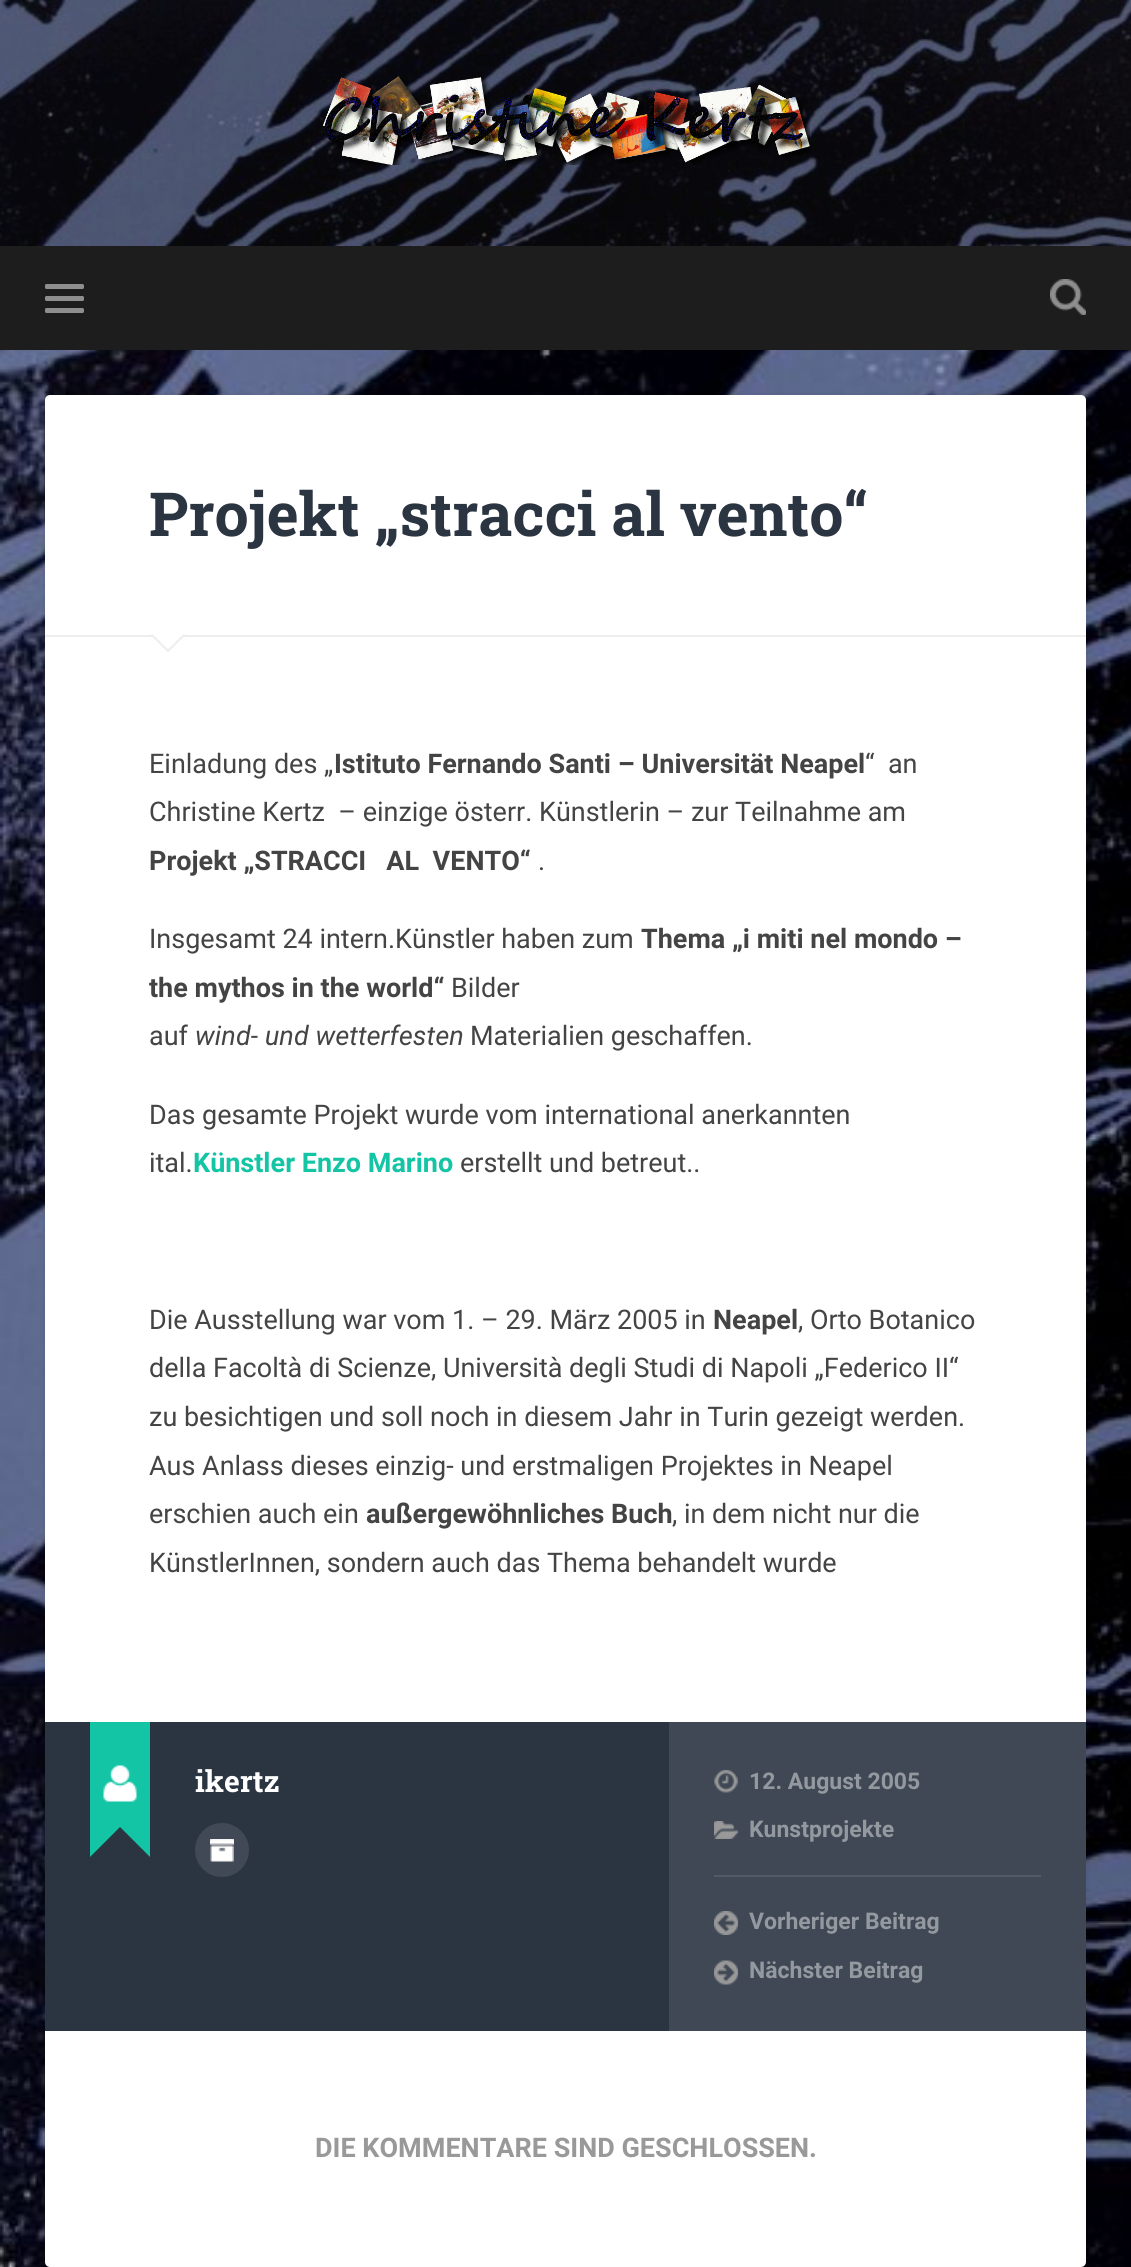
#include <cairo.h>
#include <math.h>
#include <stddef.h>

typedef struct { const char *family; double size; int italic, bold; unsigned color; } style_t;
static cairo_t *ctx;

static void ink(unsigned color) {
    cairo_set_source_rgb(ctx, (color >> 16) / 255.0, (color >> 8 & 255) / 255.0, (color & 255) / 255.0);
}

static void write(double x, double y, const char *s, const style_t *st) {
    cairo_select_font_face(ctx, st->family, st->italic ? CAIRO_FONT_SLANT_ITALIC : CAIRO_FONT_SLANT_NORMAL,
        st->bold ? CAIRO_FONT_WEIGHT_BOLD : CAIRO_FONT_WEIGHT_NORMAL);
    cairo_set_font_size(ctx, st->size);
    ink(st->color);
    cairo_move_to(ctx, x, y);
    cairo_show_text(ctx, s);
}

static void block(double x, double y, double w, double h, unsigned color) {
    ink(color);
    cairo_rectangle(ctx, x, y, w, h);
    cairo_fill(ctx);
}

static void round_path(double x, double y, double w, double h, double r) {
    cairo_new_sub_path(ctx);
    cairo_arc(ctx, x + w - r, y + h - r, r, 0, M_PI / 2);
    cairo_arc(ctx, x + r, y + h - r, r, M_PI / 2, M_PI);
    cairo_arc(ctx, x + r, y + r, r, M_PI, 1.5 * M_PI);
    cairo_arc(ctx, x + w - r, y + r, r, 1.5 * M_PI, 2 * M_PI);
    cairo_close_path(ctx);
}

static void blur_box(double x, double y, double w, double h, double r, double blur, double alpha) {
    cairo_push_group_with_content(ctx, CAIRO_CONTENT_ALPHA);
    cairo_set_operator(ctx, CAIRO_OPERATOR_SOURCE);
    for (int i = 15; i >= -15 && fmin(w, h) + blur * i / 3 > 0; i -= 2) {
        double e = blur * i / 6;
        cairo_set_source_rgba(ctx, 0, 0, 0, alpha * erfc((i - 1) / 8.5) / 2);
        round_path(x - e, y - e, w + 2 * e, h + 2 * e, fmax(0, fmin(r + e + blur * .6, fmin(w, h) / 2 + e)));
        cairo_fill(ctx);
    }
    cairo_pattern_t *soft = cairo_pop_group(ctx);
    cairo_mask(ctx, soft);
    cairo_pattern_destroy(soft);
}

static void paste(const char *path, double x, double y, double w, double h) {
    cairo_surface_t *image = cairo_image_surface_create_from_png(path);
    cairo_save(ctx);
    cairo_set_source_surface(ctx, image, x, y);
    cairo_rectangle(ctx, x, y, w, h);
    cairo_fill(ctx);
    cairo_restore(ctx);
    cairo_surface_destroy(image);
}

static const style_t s1 = {"Roboto Slab", 60.75, 0, 1, 0x2b3542};
static const style_t s2 = {"Roboto", 27, 0, 0, 0x444444};
static const style_t s3 = {"Roboto", 27, 0, 1, 0x444444};
static const style_t s4 = {"Roboto", 27, 1, 0, 0x444444};
static const style_t s5 = {"Roboto", 27, 0, 1, 0x13c4a5};
static const style_t s6 = {"Roboto Slab", 30, 0, 1, 0xffffff};
static const style_t s7 = {"Roboto", 23, 0, 1, 0x9499a0};
static const style_t s8 = {"Roboto", 27, 0, 1, 0x999999};

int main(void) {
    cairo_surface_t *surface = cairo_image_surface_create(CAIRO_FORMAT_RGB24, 1131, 2267);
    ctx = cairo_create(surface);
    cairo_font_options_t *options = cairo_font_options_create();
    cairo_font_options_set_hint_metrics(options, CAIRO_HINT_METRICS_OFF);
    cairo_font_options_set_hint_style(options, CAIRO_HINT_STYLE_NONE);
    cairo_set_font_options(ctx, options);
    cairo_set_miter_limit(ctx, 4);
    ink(0xffffff);
    cairo_paint(ctx);
    paste("pic1.png", 0, 350, 1131, 1917);
    paste("pic2.png", 0, 0, 1131, 246);
    paste("pic3.png", 322, 76, 488, 89);
    block(0, 246, 1131, 104, 0x1d1d1d);
    ink(0x8e8e8e);
    round_path(45, 284, 39, 5, 1.5);
    cairo_fill(ctx);
    round_path(45, 296, 39, 5, 1.5);
    cairo_fill(ctx);
    round_path(45, 308, 39, 5, 1.5);
    cairo_fill(ctx);
    paste("pic4.png", 1050, 279, 36, 36);
    ink(0x000000);
    blur_box(45, 396, 1041, 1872, 5, 3, 0.1);
    ink(0xffffff);
    round_path(45, 395, 1041, 1872, 5);
    cairo_fill(ctx);
    block(45, 635, 1041, 2, 0xeeeeee);
    write(149, 536, "Projekt „stracci al vento“", &s1);
    ink(0xeeeeee);
    cairo_new_path(ctx);
    cairo_move_to(ctx, 150, 634.5);
    cairo_line_to(ctx, 186, 634.5);
    cairo_line_to(ctx, 168, 652.5);
    cairo_close_path(ctx);
    cairo_fill(ctx);
    ink(0xffffff);
    cairo_new_path(ctx);
    cairo_move_to(ctx, 151.5, 633);
    cairo_line_to(ctx, 184.5, 633);
    cairo_line_to(ctx, 168, 649.5);
    cairo_close_path(ctx);
    cairo_fill(ctx);
    write(149, 773, "Einladung des „", &s2);
    write(334, 773, "Istituto Fernando Santi – Universität Neapel", &s3);
    write(865, 773, "“  an", &s2);
    write(149, 821, "Christine Kertz  – einzige österr. Künstlerin – zur Teilnahme am", &s2);
    write(149, 870, "Projekt „STRACCI   AL  VENTO“", &s3);
    write(538, 870, ".", &s2);
    write(149, 948, "Insgesamt 24 intern.Künstler haben zum", &s2);
    write(641, 948, "Thema „i miti nel mondo –", &s3);
    write(149, 997, "the mythos in the world“", &s3);
    write(451, 997, "Bilder", &s2);
    write(149, 1045, "auf", &s2);
    write(195, 1045, "wind- und wetterfesten", &s4);
    write(470, 1045, "Materialien geschaffen.", &s2);
    write(149, 1124, "Das gesamte Projekt wurde vom international anerkannten", &s2);
    write(149, 1172, "ital.", &s2);
    write(193, 1172, "Künstler Enzo Marino", &s5);
    write(460, 1172, "erstellt und betreut..", &s2);
    write(149, 1329, "Die Ausstellung war vom 1. – 29. März 2005 in", &s2);
    write(713, 1329, "Neapel", &s3);
    write(798, 1329, ", Orto Botanico", &s2);
    write(149, 1377, "della Facoltà di Scienze, Università degli Studi di Napoli „Federico II“", &s2);
    write(149, 1426, "zu besichtigen und soll noch in diesem Jahr in Turin gezeigt werden.", &s2);
    write(149, 1475, "Aus Anlass dieses einzig- und erstmaligen Projektes in Neapel", &s2);
    write(149, 1523, "erschien auch ein", &s2);
    write(366, 1523, "außergewöhnliches Buch", &s3);
    write(672, 1523, ", in dem nicht nur die", &s2);
    write(149, 1572, "KünstlerInnen, sondern auch das Thema behandelt wurde", &s2);
    block(45, 1722, 624, 309, 0x2b3542);
    ink(0x13c4a5);
    cairo_new_path(ctx);
    cairo_move_to(ctx, 150, 1797);
    cairo_line_to(ctx, 150, 1857);
    cairo_line_to(ctx, 120, 1827);
    cairo_close_path(ctx);
    cairo_move_to(ctx, 90, 1857);
    cairo_line_to(ctx, 90, 1797);
    cairo_line_to(ctx, 120, 1827);
    cairo_close_path(ctx);
    cairo_fill(ctx);
    block(90, 1722, 60, 105, 0x13c4a5);
    paste("pic5.png", 103, 1765, 34, 37);
    write(195, 1792, "ikertz", &s6);
    ink(0x404955);
    cairo_new_path(ctx);
    cairo_arc(ctx, 222, 1850, 27, 0, 2 * M_PI);
    cairo_fill(ctx);
    paste("pic6.png", 210, 1839, 24, 23);
    block(669, 1722, 417, 309, 0x3f4854);
    paste("pic7.png", 714, 1770, 24, 23);
    write(749, 1789, "12. August 2005", &s7);
    paste("pic8.png", 714, 1821, 24, 18);
    write(749, 1837, "Kunstprojekte", &s7);
    block(714, 1875, 327, 2, 0x525a65);
    paste("pic9.png", 714, 1911, 24, 24);
    write(749, 1929, "Vorheriger Beitrag", &s7);
    paste("pic10.png", 714, 1960, 24, 25);
    write(749, 1978, "Nächster Beitrag", &s7);
    write(315, 2157, "DIE KOMMENTARE SIND GESCHLOSSEN.", &s8);
    cairo_surface_write_to_png(surface, "screenshot.png");
    cairo_font_options_destroy(options);
    cairo_destroy(ctx);
    cairo_surface_destroy(surface);
    return 0;
}
